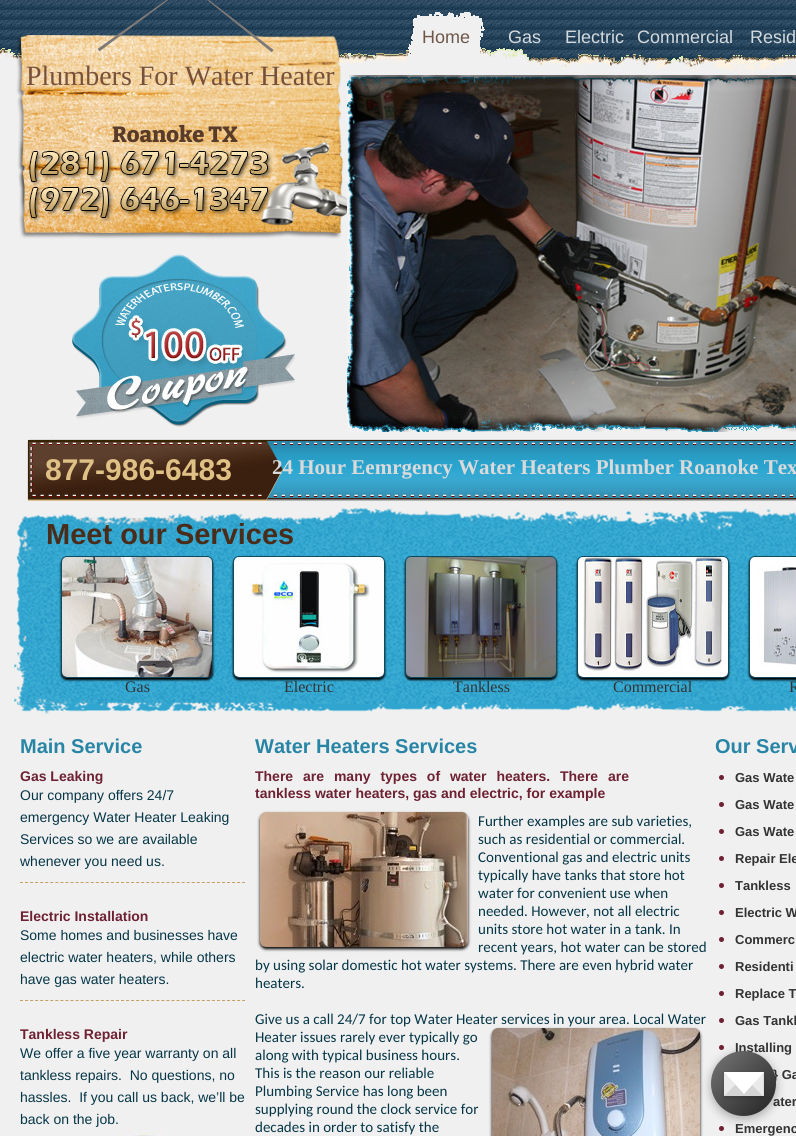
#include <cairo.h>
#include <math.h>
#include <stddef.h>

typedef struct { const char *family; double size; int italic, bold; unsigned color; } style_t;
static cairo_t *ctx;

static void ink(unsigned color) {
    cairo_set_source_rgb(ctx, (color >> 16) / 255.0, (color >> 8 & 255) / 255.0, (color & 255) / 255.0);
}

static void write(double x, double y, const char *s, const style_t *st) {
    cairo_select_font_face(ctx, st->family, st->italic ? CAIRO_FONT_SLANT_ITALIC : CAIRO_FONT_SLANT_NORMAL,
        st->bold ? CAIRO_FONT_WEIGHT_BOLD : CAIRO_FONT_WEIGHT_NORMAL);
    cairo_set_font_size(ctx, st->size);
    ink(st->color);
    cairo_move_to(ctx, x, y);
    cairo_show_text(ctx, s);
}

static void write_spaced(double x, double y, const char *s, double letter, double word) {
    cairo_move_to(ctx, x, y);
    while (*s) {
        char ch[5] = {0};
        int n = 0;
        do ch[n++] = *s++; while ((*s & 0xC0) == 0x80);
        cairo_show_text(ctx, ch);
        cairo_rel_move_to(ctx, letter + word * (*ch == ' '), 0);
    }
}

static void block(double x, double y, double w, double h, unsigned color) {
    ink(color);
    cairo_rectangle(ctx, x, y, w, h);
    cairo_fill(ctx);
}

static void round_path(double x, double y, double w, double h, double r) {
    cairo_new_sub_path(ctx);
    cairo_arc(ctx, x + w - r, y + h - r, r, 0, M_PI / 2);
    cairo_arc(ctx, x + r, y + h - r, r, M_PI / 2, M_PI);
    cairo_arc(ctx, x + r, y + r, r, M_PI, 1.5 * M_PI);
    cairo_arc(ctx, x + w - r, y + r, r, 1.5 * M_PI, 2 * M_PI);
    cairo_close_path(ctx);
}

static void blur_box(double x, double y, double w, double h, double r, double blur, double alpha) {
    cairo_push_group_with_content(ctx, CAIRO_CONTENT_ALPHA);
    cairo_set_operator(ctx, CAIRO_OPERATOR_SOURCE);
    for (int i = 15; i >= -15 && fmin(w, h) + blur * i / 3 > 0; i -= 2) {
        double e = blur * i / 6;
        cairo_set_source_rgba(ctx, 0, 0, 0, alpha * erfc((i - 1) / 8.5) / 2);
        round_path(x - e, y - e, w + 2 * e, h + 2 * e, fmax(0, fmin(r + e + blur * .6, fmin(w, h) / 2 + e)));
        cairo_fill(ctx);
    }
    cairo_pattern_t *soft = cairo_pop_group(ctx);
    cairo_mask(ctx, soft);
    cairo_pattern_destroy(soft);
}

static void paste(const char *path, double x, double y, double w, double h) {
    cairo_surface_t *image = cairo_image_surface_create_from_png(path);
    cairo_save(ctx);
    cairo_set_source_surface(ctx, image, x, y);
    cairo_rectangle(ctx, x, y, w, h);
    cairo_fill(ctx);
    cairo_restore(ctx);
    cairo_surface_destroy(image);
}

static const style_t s1 = {"Liberation Sans", 18, 0, 0, 0x6e5749};
static const style_t s2 = {"Liberation Sans", 18, 0, 0, 0xd4dade};
static const style_t s3 = {"Liberation Serif", 28, 0, 0, 0x76503a};
static const style_t s4 = {"Bitter ExtraBold", 22, 0, 0, 0x593b29};
static const style_t s5 = {"Liberation Sans", 30, 0, 1, 0xdfc185};
static const style_t s6 = {"Liberation Serif", 21, 0, 1, 0xdadada};
static const style_t s7 = {"Liberation Sans", 29, 0, 1, 0x4a2c1a};
static const style_t s8 = {"Liberation Serif", 16, 0, 0, 0x333333};
static const style_t s9 = {"Liberation Sans", 20, 0, 1, 0x2885a6};
static const style_t s10 = {"Liberation Sans", 14, 0, 1, 0x6e2133};
static const style_t s11 = {"Liberation Sans", 14, 0, 0, 0x053647};
static const style_t s12 = {"Carlito", 15, 0, 0, 0x053647};
static const style_t s13 = {"Liberation Sans", 13, 0, 1, 0x333333};

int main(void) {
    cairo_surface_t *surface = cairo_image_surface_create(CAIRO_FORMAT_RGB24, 796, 1136);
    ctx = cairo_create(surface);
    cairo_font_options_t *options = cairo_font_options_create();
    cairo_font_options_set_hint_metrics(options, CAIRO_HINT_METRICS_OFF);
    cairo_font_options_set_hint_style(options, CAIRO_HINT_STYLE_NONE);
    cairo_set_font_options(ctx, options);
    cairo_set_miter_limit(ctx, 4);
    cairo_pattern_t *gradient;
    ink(0xffffff);
    cairo_paint(ctx);
    paste("pic1.png", 0, 0, 796, 62);
    paste("pic2.png", 0, 48, 796, 1088);
    paste("pic3.png", 408, 12, 77, 47);
    write(422, 43, "Home", &s1);
    write(508, 43, "Gas", &s2);
    write(565, 43, "Electric", &s2);
    write(637, 43, "Commercial", &s2);
    write(750, 43, "Resid", &s2);
    paste("pic4.png", 16, 0, 331, 239);
    write(26, 85, "Plumbers For Water Heater", &s3);
    write(112, 142, "Roanoke TX", &s4);
    paste("pic5.png", 71, 253, 224, 176);
    paste("pic6.png", 347, 75, 449, 357);
    paste("pic7.png", 27, 436, 769, 65);
    write(45, 480, "877-986-6483", &s5);
    write(272, 474, "24 Hour Eemrgency Water Heaters Plumber Roanoke Tex", &s6);
    paste("pic8.png", 14, 508, 782, 206);
    write(46, 544, "Meet our Services", &s7);
    ink(0x000000);
    blur_box(61, 558, 152, 122, 6, 1, 1);
    round_path(61.5, 556.5, 151, 121, 5.5);
    ink(0x104a5e);
    cairo_set_line_width(ctx, 1);
    cairo_stroke(ctx);
    paste("pic9.png", 62, 557, 150, 120);
    write(125, 692, "Gas", &s8);
    ink(0x000000);
    blur_box(233, 558, 152, 122, 6, 1, 1);
    round_path(233.5, 556.5, 151, 121, 5.5);
    ink(0x104a5e);
    cairo_stroke(ctx);
    paste("pic10.png", 234, 557, 150, 120);
    write(284, 692, "Electric", &s8);
    ink(0x000000);
    blur_box(405, 558, 152, 122, 6, 1, 1);
    round_path(405.5, 556.5, 151, 121, 5.5);
    ink(0x104a5e);
    cairo_stroke(ctx);
    paste("pic11.png", 406, 557, 150, 120);
    write(453, 692, "Tankless", &s8);
    ink(0x000000);
    blur_box(577, 558, 152, 122, 6, 1, 1);
    round_path(577.5, 556.5, 151, 121, 5.5);
    ink(0x104a5e);
    cairo_stroke(ctx);
    paste("pic12.png", 578, 557, 150, 120);
    write(613, 692, "Commercial", &s8);
    ink(0x000000);
    blur_box(749, 558, 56, 122, 6, 1, 1);
    round_path(749.5, 556.5, 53, 121, 5.5);
    ink(0x104a5e);
    cairo_stroke(ctx);
    paste("pic13.png", 750, 557, 46, 120);
    write(789, 692, "R", &s8);
    write(20, 753, "Main Service", &s9);
    write(20, 781, "Gas Leaking", &s10);
    write(20, 800, "Our company offers 24/7", &s11);
    write(20, 822, "emergency Water Heater Leaking", &s11);
    write(20, 844, "Services so we are available", &s11);
    write(20, 866, "whenever you need us.", &s11);
    cairo_new_path(ctx);
    cairo_move_to(ctx, 20, 882.5);
    cairo_line_to(ctx, 245, 882.5);
    ink(0xc39f63);
    cairo_set_dash(ctx, (double[]){3, 2.05}, 2, 0);
    cairo_stroke(ctx);
    write(20, 921, "Electric Installation", &s10);
    write(20, 940, "Some homes and businesses have", &s11);
    write(20, 962, "electric water heaters, while others", &s11);
    write(20, 984, "have gas water heaters.", &s11);
    cairo_new_path(ctx);
    cairo_move_to(ctx, 20, 1000.5);
    cairo_line_to(ctx, 245, 1000.5);
    ink(0xc39f63);
    cairo_stroke(ctx);
    write(20, 1039, "Tankless Repair", &s10);
    write(20, 1058, "We offer a five year warranty on all", &s11);
    write(20, 1080, "tankless repairs.  No questions, no", &s11);
    write(20, 1102, "hassles.  If you call us back, we’ll be", &s11);
    write(20, 1124, "back on the job.", &s11);
    paste("pic14.png", 120, 1130, 44, 6);
    write(255, 753, "Water Heaters Services", &s9);
    cairo_set_font_size(ctx, 14);
    ink(0x6e2133);
    write_spaced(255, 781, "There are many types of water heaters. There are", 0, 6);
    write(255, 798, "tankless water heaters, gas and electric, for example", &s10);
    ink(0x000000);
    blur_box(260, 814, 208, 135, 6, 1.5, 1);
    paste("pic15.png", 260, 812, 208, 135);
    write(478, 826, "Further examples are sub varieties,", &s12);
    write(478, 844, "such as residential or commercial.", &s12);
    write(478, 862, "Conventional gas and electric units", &s12);
    write(478, 880, "typically have tanks that store hot", &s12);
    write(478, 898, "water for convenient use when", &s12);
    write(478, 916, "needed. However, not all electric", &s12);
    write(478, 934, "units store hot water in a tank. In", &s12);
    write(478, 952, "recent years, hot water can be stored", &s12);
    write(255, 970, "by using solar domestic hot water systems. There are even hybrid water", &s12);
    write(255, 988, "heaters.", &s12);
    ink(0x000000);
    blur_box(492, 1030, 208, 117, 6, 1.5, 1);
    write(255, 1024, "Give us a call 24/7 for top Water Heater services in your area. Local Water", &s12);
    write(255, 1042, "Heater issues rarely ever typically go", &s12);
    paste("pic16.png", 492, 1028, 208, 108);
    write(255, 1060, "along with typical business hours.", &s12);
    write(255, 1078, "This is the reason our reliable", &s12);
    write(255, 1096, "Plumbing Service has long been", &s12);
    write(255, 1114, "supplying round the clock service for", &s12);
    write(255, 1132, "decades in order to satisfy the", &s12);
    write(715, 753, "Our Serv", &s9);
    ink(0x6e2133);
    cairo_new_path(ctx);
    cairo_arc(ctx, 721.5, 777.5, 2.5, 0, 2 * M_PI);
    cairo_fill(ctx);
    write(735, 782, "Gas Wate", &s13);
    ink(0x6e2133);
    cairo_new_path(ctx);
    cairo_arc(ctx, 721.5, 804.5, 2.5, 0, 2 * M_PI);
    cairo_fill(ctx);
    write(735, 809, "Gas Wate", &s13);
    ink(0x6e2133);
    cairo_new_path(ctx);
    cairo_arc(ctx, 721.5, 831.5, 2.5, 0, 2 * M_PI);
    cairo_fill(ctx);
    write(735, 836, "Gas Wate", &s13);
    ink(0x6e2133);
    cairo_new_path(ctx);
    cairo_arc(ctx, 721.5, 858.5, 2.5, 0, 2 * M_PI);
    cairo_fill(ctx);
    write(735, 863, "Repair Ele", &s13);
    ink(0x6e2133);
    cairo_new_path(ctx);
    cairo_arc(ctx, 721.5, 885.5, 2.5, 0, 2 * M_PI);
    cairo_fill(ctx);
    write(735, 890, "Tankless", &s13);
    ink(0x6e2133);
    cairo_new_path(ctx);
    cairo_arc(ctx, 721.5, 912.5, 2.5, 0, 2 * M_PI);
    cairo_fill(ctx);
    write(735, 917, "Electric W", &s13);
    ink(0x6e2133);
    cairo_new_path(ctx);
    cairo_arc(ctx, 721.5, 939.5, 2.5, 0, 2 * M_PI);
    cairo_fill(ctx);
    write(735, 944, "Commerc", &s13);
    ink(0x6e2133);
    cairo_new_path(ctx);
    cairo_arc(ctx, 721.5, 966.5, 2.5, 0, 2 * M_PI);
    cairo_fill(ctx);
    write(735, 971, "Residenti", &s13);
    ink(0x6e2133);
    cairo_new_path(ctx);
    cairo_arc(ctx, 721.5, 993.5, 2.5, 0, 2 * M_PI);
    cairo_fill(ctx);
    write(735, 998, "Replace T", &s13);
    ink(0x6e2133);
    cairo_new_path(ctx);
    cairo_arc(ctx, 721.5, 1020.5, 2.5, 0, 2 * M_PI);
    cairo_fill(ctx);
    write(735, 1025, "Gas Tankl", &s13);
    ink(0x6e2133);
    cairo_new_path(ctx);
    cairo_arc(ctx, 721.5, 1047.5, 2.5, 0, 2 * M_PI);
    cairo_fill(ctx);
    write(735, 1052, "Installing", &s13);
    write(773, 1079, "} Ga", &s13);
    write(773, 1106, "ater", &s13);
    ink(0x6e2133);
    cairo_new_path(ctx);
    cairo_arc(ctx, 721.5, 1128.5, 2.5, 0, 2 * M_PI);
    cairo_fill(ctx);
    write(735, 1133, "Emergenc", &s13);
    ink(0x000000);
    blur_box(711, 1054, 65, 65, 32.5, 5, 0.3);
    gradient = cairo_pattern_create_linear(711, 1051, 776, 1116);
    cairo_pattern_add_color_stop_rgba(gradient, 0, 0.467, 0.467, 0.467, 1);
    cairo_pattern_add_color_stop_rgba(gradient, 1, 0.133, 0.133, 0.133, 1);
    cairo_set_source(ctx, gradient);
    cairo_pattern_destroy(gradient);
    cairo_arc(ctx, 743.5, 1083.5, 32.5, 0, 2 * M_PI);
    cairo_fill(ctx);
    ink(0x000000);
    blur_box(724, 1074, 40, 24, 0, 2.5, 0.2);
    block(724, 1072, 40, 24, 0xdddddd);
    ink(0xd4d4d4);
    cairo_new_path(ctx);
    cairo_move_to(ctx, 764, 1096);
    cairo_line_to(ctx, 724, 1096);
    cairo_line_to(ctx, 744, 1074);
    cairo_close_path(ctx);
    cairo_fill(ctx);
    ink(0xeaeaea);
    cairo_new_path(ctx);
    cairo_move_to(ctx, 724, 1096);
    cairo_line_to(ctx, 724, 1072);
    cairo_line_to(ctx, 736, 1084);
    cairo_close_path(ctx);
    cairo_move_to(ctx, 763, 1072);
    cairo_line_to(ctx, 763, 1096);
    cairo_line_to(ctx, 751, 1084);
    cairo_close_path(ctx);
    cairo_fill(ctx);
    ink(0xffffff);
    cairo_new_path(ctx);
    cairo_move_to(ctx, 724, 1072);
    cairo_line_to(ctx, 764, 1072);
    cairo_line_to(ctx, 744, 1094);
    cairo_close_path(ctx);
    cairo_fill(ctx);
    cairo_surface_write_to_png(surface, "screenshot.png");
    cairo_font_options_destroy(options);
    cairo_destroy(ctx);
    cairo_surface_destroy(surface);
    return 0;
}
